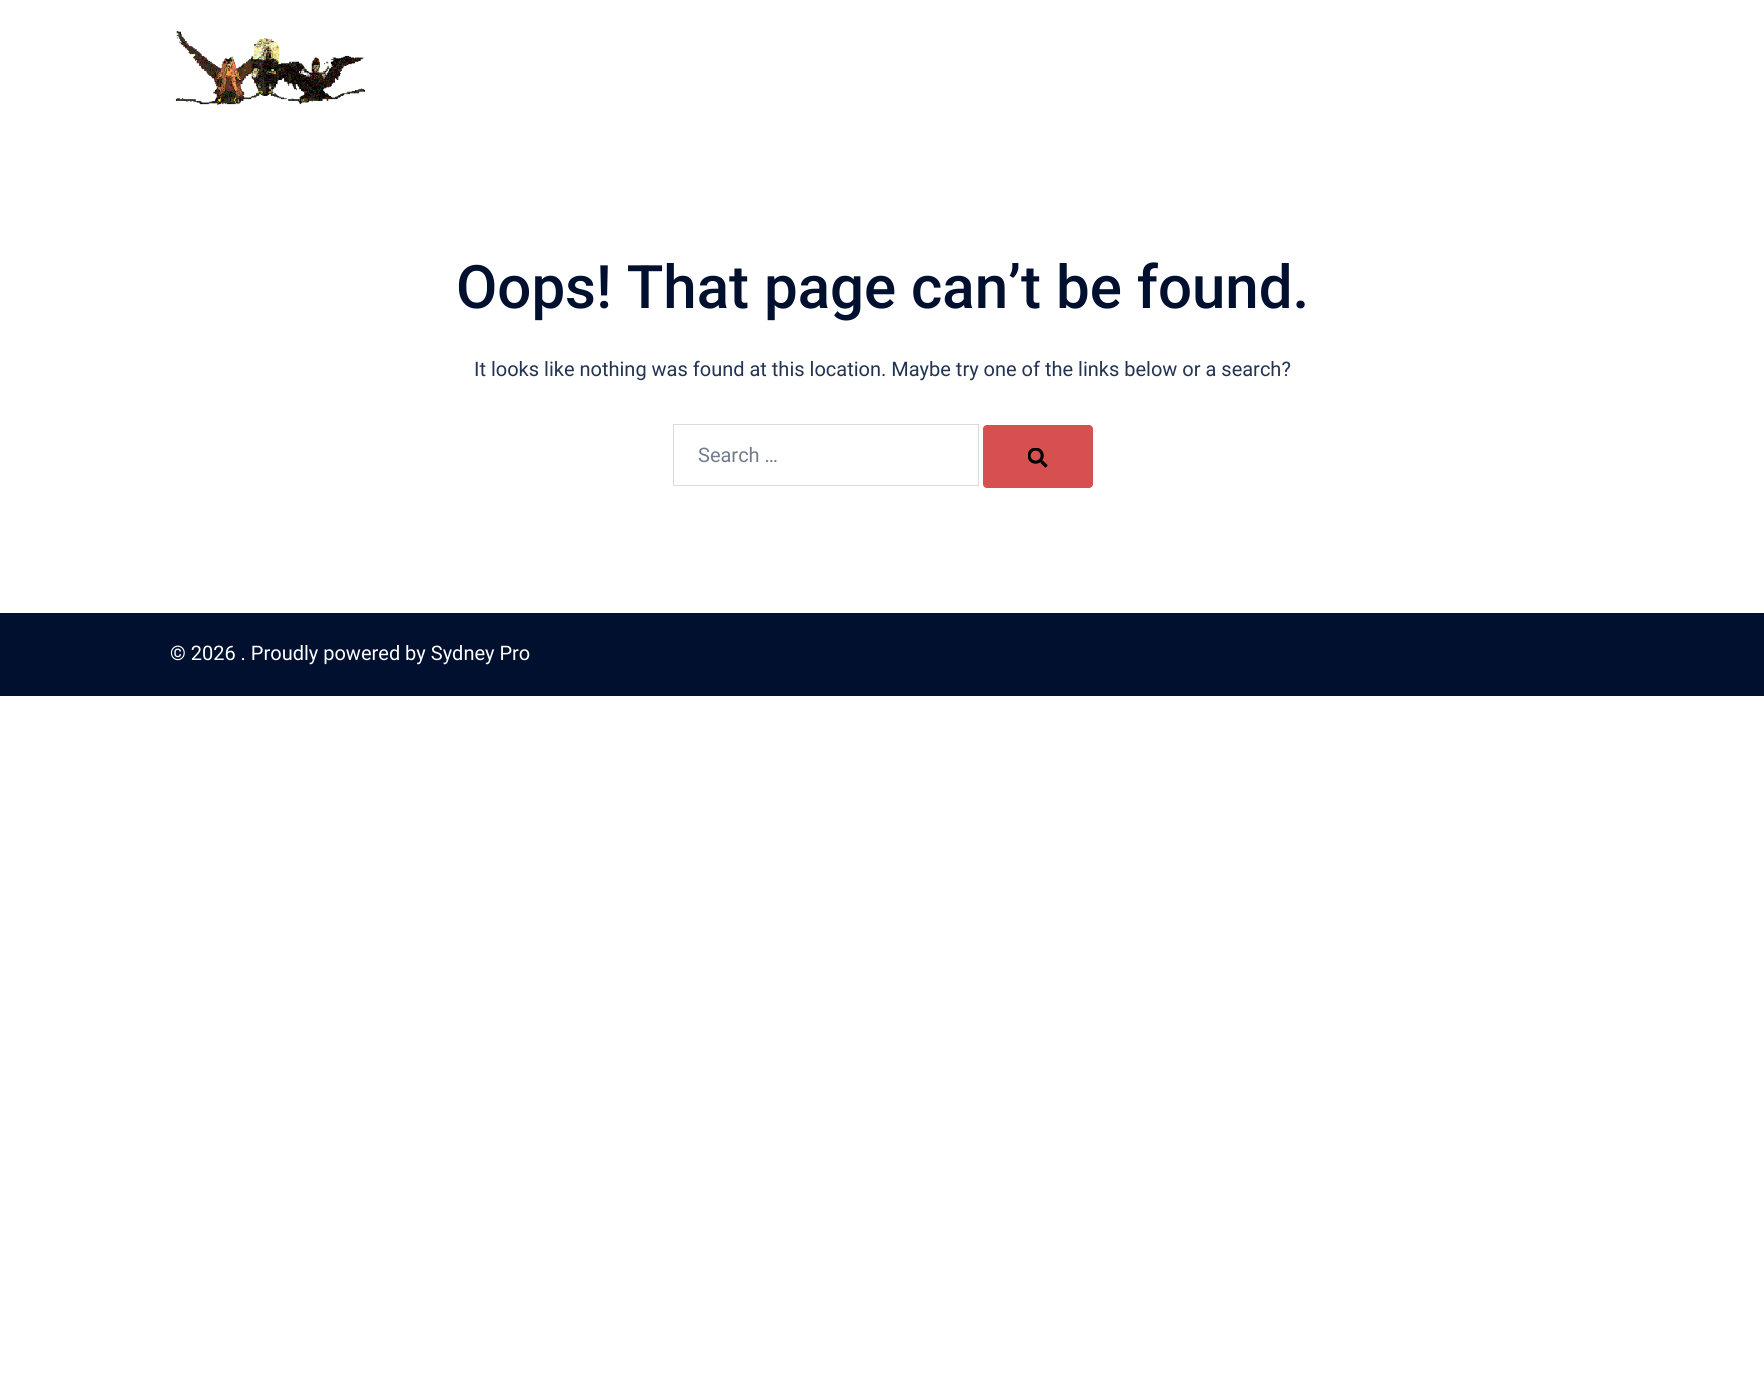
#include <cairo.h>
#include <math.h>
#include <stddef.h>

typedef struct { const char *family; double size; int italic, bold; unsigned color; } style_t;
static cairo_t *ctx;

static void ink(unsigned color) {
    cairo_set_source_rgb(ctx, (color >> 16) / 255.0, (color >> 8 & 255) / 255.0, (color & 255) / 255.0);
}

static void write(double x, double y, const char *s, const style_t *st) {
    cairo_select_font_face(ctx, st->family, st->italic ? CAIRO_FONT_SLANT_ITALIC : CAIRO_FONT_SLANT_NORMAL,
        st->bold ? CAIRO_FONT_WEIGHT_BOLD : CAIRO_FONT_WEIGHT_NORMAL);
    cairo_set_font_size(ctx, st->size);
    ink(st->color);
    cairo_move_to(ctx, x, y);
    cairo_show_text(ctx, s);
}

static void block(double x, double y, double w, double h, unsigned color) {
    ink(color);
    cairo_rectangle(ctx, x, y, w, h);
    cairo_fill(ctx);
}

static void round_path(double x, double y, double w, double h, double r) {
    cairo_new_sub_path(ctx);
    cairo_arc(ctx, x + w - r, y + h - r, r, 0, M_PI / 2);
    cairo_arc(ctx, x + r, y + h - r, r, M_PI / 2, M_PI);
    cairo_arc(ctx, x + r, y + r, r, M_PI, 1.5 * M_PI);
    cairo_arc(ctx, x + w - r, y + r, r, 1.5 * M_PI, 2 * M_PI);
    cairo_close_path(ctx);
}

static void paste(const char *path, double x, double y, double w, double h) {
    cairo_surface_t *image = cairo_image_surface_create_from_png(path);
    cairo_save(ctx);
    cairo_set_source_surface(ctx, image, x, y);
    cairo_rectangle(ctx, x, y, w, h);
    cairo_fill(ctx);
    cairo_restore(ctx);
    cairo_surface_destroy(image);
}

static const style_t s1 = {"Roboto Medium", 60, 0, 0, 0x00102e};
static const style_t s2 = {"Roboto", 20, 0, 0, 0x233452};
static const style_t s3 = {"Roboto", 20, 0, 0, 0x737c8c};
static const style_t s4 = {"Roboto", 20, 0, 0, 0xffffff};

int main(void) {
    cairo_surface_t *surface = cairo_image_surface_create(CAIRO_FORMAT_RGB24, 1764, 1384);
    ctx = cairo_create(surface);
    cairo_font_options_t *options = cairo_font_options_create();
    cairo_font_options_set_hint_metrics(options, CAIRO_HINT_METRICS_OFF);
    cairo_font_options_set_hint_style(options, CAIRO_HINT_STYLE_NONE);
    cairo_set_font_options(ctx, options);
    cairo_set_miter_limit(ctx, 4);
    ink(0xffffff);
    cairo_paint(ctx);
    paste("pic1.png", 175, 30, 190, 75);
    write(456, 308, "Oops! That page can’t be found.", &s1);
    write(474, 376, "It looks like nothing was found at this location. Maybe try one of the links below or a search?", &s2);
    cairo_rectangle(ctx, 673.5, 424.5, 305, 61);
    ink(0xdbdbdb);
    cairo_set_line_width(ctx, 1);
    cairo_stroke(ctx);
    write(698, 462, "Search …", &s3);
    ink(0xd65050);
    round_path(983.5, 425.5, 109, 62, 3.5);
    cairo_fill_preserve(ctx);
    cairo_stroke(ctx);
    paste("pic2.png", 1028, 448, 20, 20);
    block(0, 613, 1764, 83, 0x00102e);
    write(170, 660, "© 2026 . Proudly powered by Sydney Pro", &s4);
    cairo_surface_write_to_png(surface, "screenshot.png");
    cairo_font_options_destroy(options);
    cairo_destroy(ctx);
    cairo_surface_destroy(surface);
    return 0;
}
